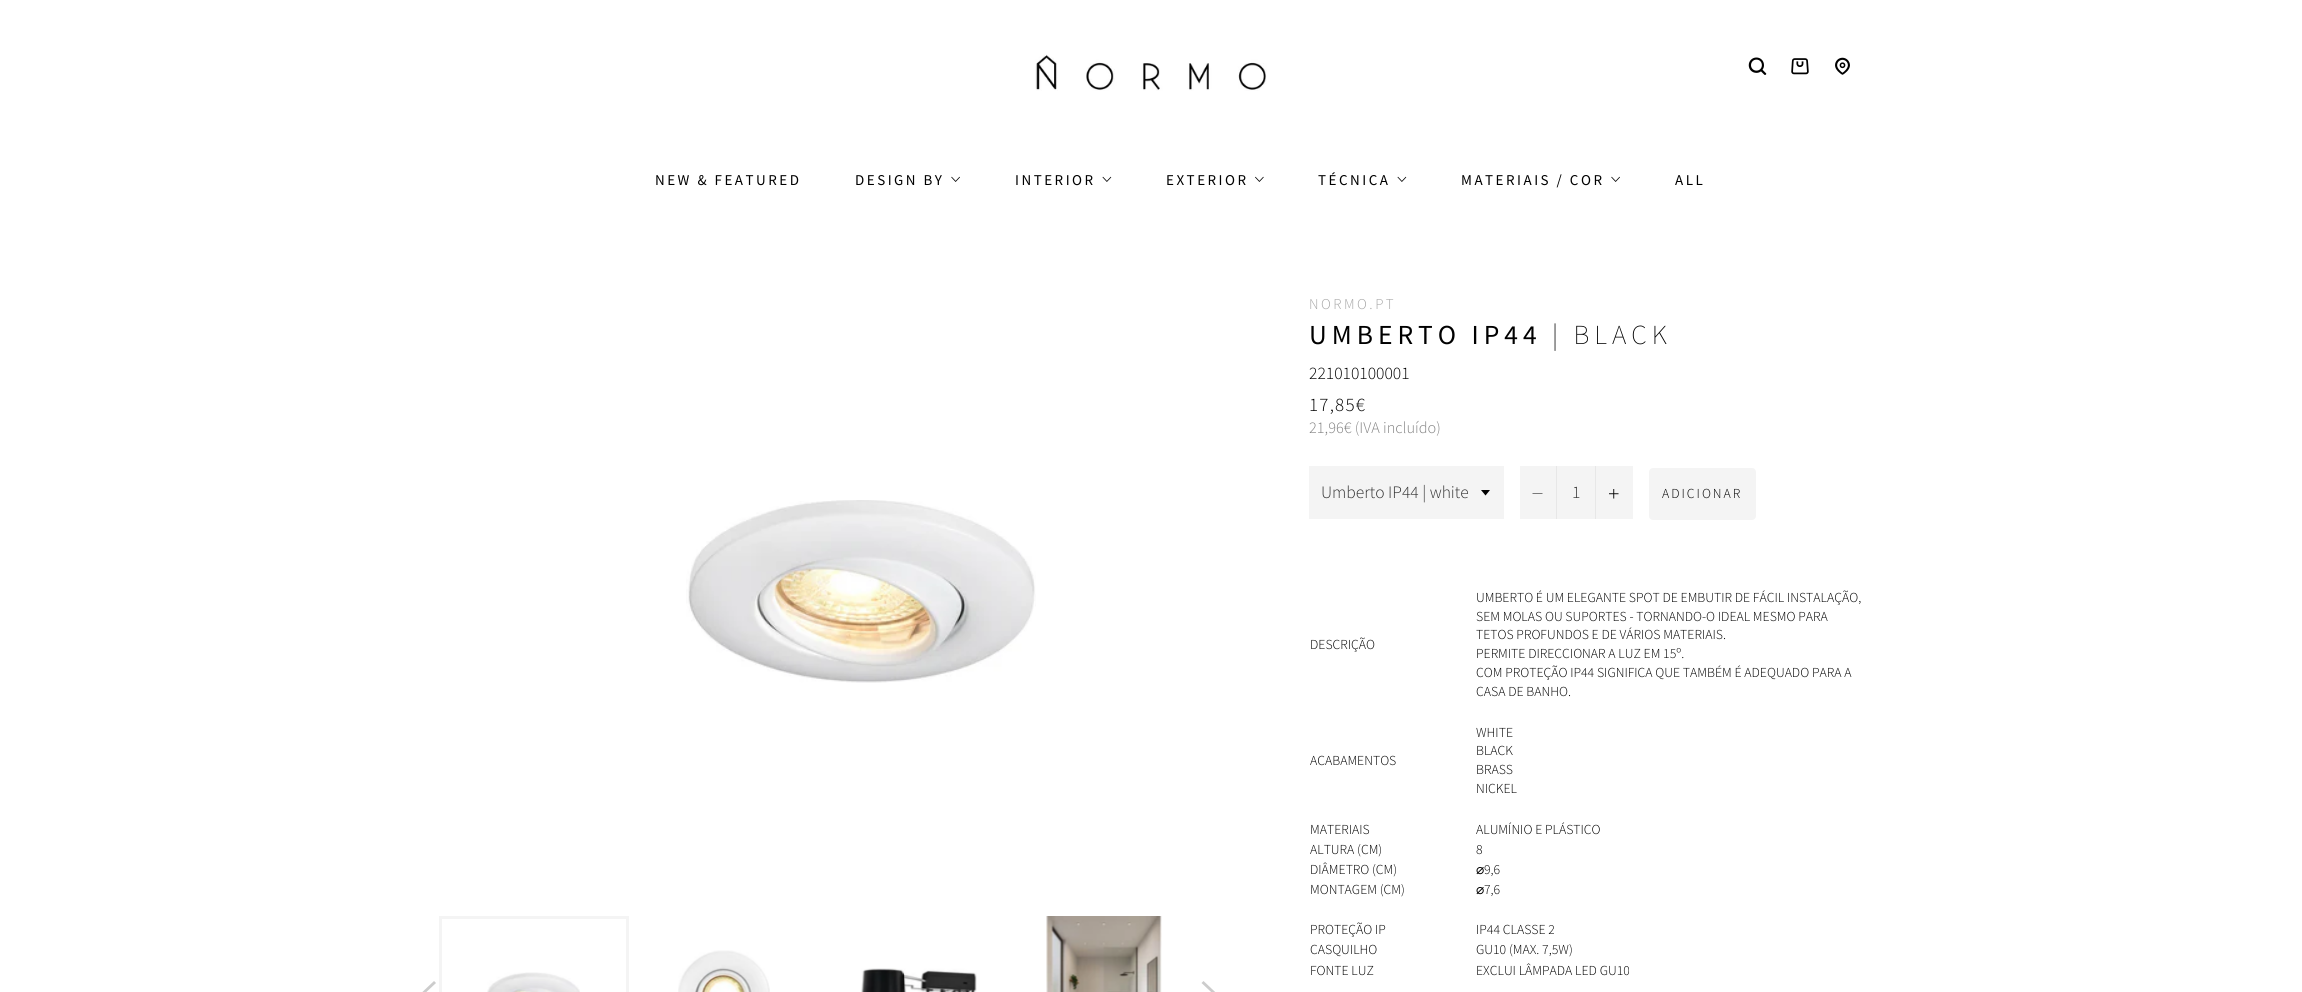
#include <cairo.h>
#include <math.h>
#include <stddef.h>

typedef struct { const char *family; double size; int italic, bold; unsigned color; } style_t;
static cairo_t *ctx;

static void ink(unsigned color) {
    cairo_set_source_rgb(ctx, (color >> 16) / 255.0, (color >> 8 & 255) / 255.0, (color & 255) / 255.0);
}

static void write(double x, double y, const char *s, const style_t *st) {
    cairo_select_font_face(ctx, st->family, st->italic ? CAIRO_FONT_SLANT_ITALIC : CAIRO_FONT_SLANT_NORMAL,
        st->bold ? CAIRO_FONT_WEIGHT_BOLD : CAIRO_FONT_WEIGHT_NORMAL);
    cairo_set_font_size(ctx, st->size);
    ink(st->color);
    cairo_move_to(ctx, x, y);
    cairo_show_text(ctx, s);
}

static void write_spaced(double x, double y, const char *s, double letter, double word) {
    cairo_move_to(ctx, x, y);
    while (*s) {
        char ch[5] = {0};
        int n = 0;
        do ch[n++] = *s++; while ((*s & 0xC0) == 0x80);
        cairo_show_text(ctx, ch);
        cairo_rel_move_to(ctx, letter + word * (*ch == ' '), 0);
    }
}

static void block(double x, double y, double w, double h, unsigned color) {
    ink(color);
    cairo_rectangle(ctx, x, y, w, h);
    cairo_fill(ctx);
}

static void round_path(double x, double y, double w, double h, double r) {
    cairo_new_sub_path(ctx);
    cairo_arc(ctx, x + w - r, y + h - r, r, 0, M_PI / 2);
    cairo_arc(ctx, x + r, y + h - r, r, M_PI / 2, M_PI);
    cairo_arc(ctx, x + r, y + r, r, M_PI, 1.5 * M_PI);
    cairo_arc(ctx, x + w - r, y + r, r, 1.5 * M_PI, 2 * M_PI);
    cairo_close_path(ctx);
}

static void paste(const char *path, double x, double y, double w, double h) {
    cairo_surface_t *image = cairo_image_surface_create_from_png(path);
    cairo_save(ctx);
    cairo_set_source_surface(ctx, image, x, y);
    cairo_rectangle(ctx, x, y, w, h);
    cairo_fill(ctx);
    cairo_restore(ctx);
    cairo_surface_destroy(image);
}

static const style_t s1 = {"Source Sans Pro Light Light", 17.5, 0, 0, 0x000000};
static const style_t s2 = {"Source Sans Pro Light Light", 16.25, 0, 0, 0x828282};
static const style_t s3 = {"Source Sans Pro Light Light", 17.5, 0, 0, 0x333333};
static const style_t s4 = {"Source Sans Pro Light Light", 13.75, 0, 0, 0x000000};
static const style_t s5 = {"DejaVu Sans", 13.75, 0, 0, 0x000000};

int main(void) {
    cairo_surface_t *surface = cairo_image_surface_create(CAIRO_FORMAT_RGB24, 2302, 992);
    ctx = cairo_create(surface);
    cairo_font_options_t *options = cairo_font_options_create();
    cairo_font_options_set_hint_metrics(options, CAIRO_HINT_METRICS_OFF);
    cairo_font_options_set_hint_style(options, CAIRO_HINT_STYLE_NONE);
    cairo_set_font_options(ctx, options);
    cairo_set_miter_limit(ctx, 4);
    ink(0xffffff);
    cairo_paint(ctx);
    paste("pic1.png", 1035, 54, 232, 37);
    paste("pic2.png", 1748, 57, 19, 18);
    paste("pic3.png", 1791, 58, 18, 17);
    paste("pic4.png", 1835, 57, 15, 18);
    cairo_select_font_face(ctx, "Source Sans Pro", CAIRO_FONT_SLANT_NORMAL, CAIRO_FONT_WEIGHT_NORMAL);
    cairo_set_font_size(ctx, 15);
    ink(0x000000);
    write_spaced(655, 185, "NEW & FEATURED", 2.5, 0);
    write_spaced(855, 185, "DESIGN BY", 2.5, 0);
    paste("pic5.png", 951, 176, 9, 6);
    write_spaced(1015, 185, "INTERIOR", 2.5, 0);
    paste("pic6.png", 1102, 176, 10, 6);
    write_spaced(1166, 185, "EXTERIOR", 2.5, 0);
    paste("pic7.png", 1255, 176, 9, 6);
    write_spaced(1318, 185, "TÉCNICA", 2.5, 0);
    paste("pic6.png", 1397, 176, 10, 6);
    write_spaced(1461, 185, "MATERIAIS / COR", 2.5, 0);
    paste("pic5.png", 1611, 176, 9, 6);
    write_spaced(1675, 185, "ALL", 2.5, 0);
    paste("pic8.png", 686, 500, 350, 183);
    ink(0xcccccc);
    cairo_new_path(ctx);
    cairo_move_to(ctx, 436, 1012);
    cairo_line_to(ctx, 434, 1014);
    cairo_line_to(ctx, 416.5, 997.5);
    cairo_line_to(ctx, 434, 981);
    cairo_line_to(ctx, 436, 983);
    cairo_line_to(ctx, 420.5, 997.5);
    cairo_close_path(ctx);
    cairo_fill(ctx);
    paste("pic9.png", 487, 972, 93, 20);
    cairo_rectangle(ctx, 440.5, 917.5, 187, 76);
    ink(0xf4f4f4);
    cairo_set_line_width(ctx, 3);
    cairo_stroke(ctx);
    paste("pic10.png", 678, 950, 92, 42);
    paste("pic11.png", 861, 968, 116, 24);
    paste("pic12.png", 1046, 916, 116, 76);
    ink(0xcccccc);
    cairo_new_path(ctx);
    cairo_move_to(ctx, 1201.5, 983);
    cairo_line_to(ctx, 1203.5, 981);
    cairo_line_to(ctx, 1221, 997.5);
    cairo_line_to(ctx, 1203.5, 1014);
    cairo_line_to(ctx, 1201.5, 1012);
    cairo_line_to(ctx, 1217, 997.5);
    cairo_close_path(ctx);
    cairo_fill(ctx);
    cairo_select_font_face(ctx, "Source Sans Pro Light Light", CAIRO_FONT_SLANT_NORMAL, CAIRO_FONT_WEIGHT_NORMAL);
    ink(0xa6a6a6);
    write_spaced(1309, 309, "NORMO.PT", 2.5, 0);
    cairo_select_font_face(ctx, "Source Sans Pro", CAIRO_FONT_SLANT_NORMAL, CAIRO_FONT_WEIGHT_NORMAL);
    cairo_set_font_size(ctx, 27.5);
    ink(0x000000);
    write_spaced(1309, 344, "UMBERTO IP44", 5, 0);
    cairo_select_font_face(ctx, "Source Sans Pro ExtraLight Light", CAIRO_FONT_SLANT_NORMAL, CAIRO_FONT_WEIGHT_NORMAL);
    write_spaced(1552, 344, "| BLACK", 5, 0);
    write(1309, 379, "221010100001", &s1);
    cairo_set_font_size(ctx, 19);
    write_spaced(1309, 411, "17,85€", 1.25, 0);
    write(1309, 433, "21,96€ (IVA incluído)", &s2);
    block(1309, 466, 195, 53, 0xf4f4f4);
    ink(0x000000);
    cairo_new_path(ctx);
    cairo_move_to(ctx, 1481, 490);
    cairo_line_to(ctx, 1485.5, 495.5);
    cairo_line_to(ctx, 1490, 490);
    cairo_close_path(ctx);
    cairo_fill(ctx);
    write(1321, 498, "Umberto IP44 | white", &s3);
    block(1520, 466, 113, 53, 0xf4f4f4);
    block(1556, 466, 1, 53, 0xe7e7e7);
    ink(0x000000);
    cairo_set_fill_rule(ctx, CAIRO_FILL_RULE_EVEN_ODD);
    cairo_new_path(ctx);
    cairo_move_to(ctx, 1542.5, 493.5);
    cairo_line_to(ctx, 1542.5, 494);
    cairo_line_to(ctx, 1532.5, 494);
    cairo_line_to(ctx, 1532.5, 493.5);
    cairo_close_path(ctx);
    cairo_fill(ctx);
    write(1572, 498, "1", &s3);
    block(1595, 466, 1, 53, 0xe7e7e7);
    paste("pic13.png", 1609, 489, 10, 10);
    ink(0xf4f4f4);
    round_path(1649, 468, 107, 52, 4);
    cairo_fill(ctx);
    cairo_set_font_size(ctx, 13.75);
    ink(0x000000);
    write_spaced(1662, 498, "ADICIONAR", 2, 0);
    write(1310, 649, "DESCRIÇÃO", &s4);
    write(1476, 602, "UMBERTO É UM ELEGANTE SPOT DE EMBUTIR DE FÁCIL INSTALAÇÃO,", &s4);
    write(1476, 621, "SEM MOLAS OU SUPORTES - TORNANDO-O IDEAL MESMO PARA", &s4);
    write(1476, 639, "TETOS PROFUNDOS E DE VÁRIOS MATERIAIS.", &s4);
    write(1476, 658, "PERMITE DIRECCIONAR A LUZ EM 15º.", &s4);
    write(1476, 677, "COM PROTEÇÃO IP44 SIGNIFICA QUE TAMBÉM É ADEQUADO PARA A", &s4);
    write(1476, 696, "CASA DE BANHO.", &s4);
    write(1310, 765, "ACABAMENTOS", &s4);
    write(1476, 737, "WHITE", &s4);
    write(1476, 755, "BLACK", &s4);
    write(1476, 774, "BRASS", &s4);
    write(1476, 793, "NICKEL", &s4);
    write(1310, 834, "MATERIAIS", &s4);
    write(1476, 834, "ALUMÍNIO E PLÁSTICO", &s4);
    write(1310, 854, "ALTURA (CM)", &s4);
    write(1476, 854, "8", &s4);
    write(1310, 874, "DIÂMETRO (CM)", &s4);
    write(1476, 874, "⌀", &s5);
    write(1484, 874, "9,6", &s4);
    write(1310, 894, "MONTAGEM (CM)", &s4);
    write(1476, 894, "⌀", &s5);
    write(1484, 894, "7,6", &s4);
    write(1310, 934, "PROTEÇÃO IP", &s4);
    write(1476, 934, "IP44 CLASSE 2", &s4);
    write(1310, 954, "CASQUILHO", &s4);
    write(1476, 954, "GU10 (MAX. 7,5W)", &s4);
    write(1310, 975, "FONTE LUZ", &s4);
    write(1476, 975, "EXCLUI LÂMPADA LED GU10", &s4);
    cairo_surface_write_to_png(surface, "screenshot.png");
    cairo_font_options_destroy(options);
    cairo_destroy(ctx);
    cairo_surface_destroy(surface);
    return 0;
}
